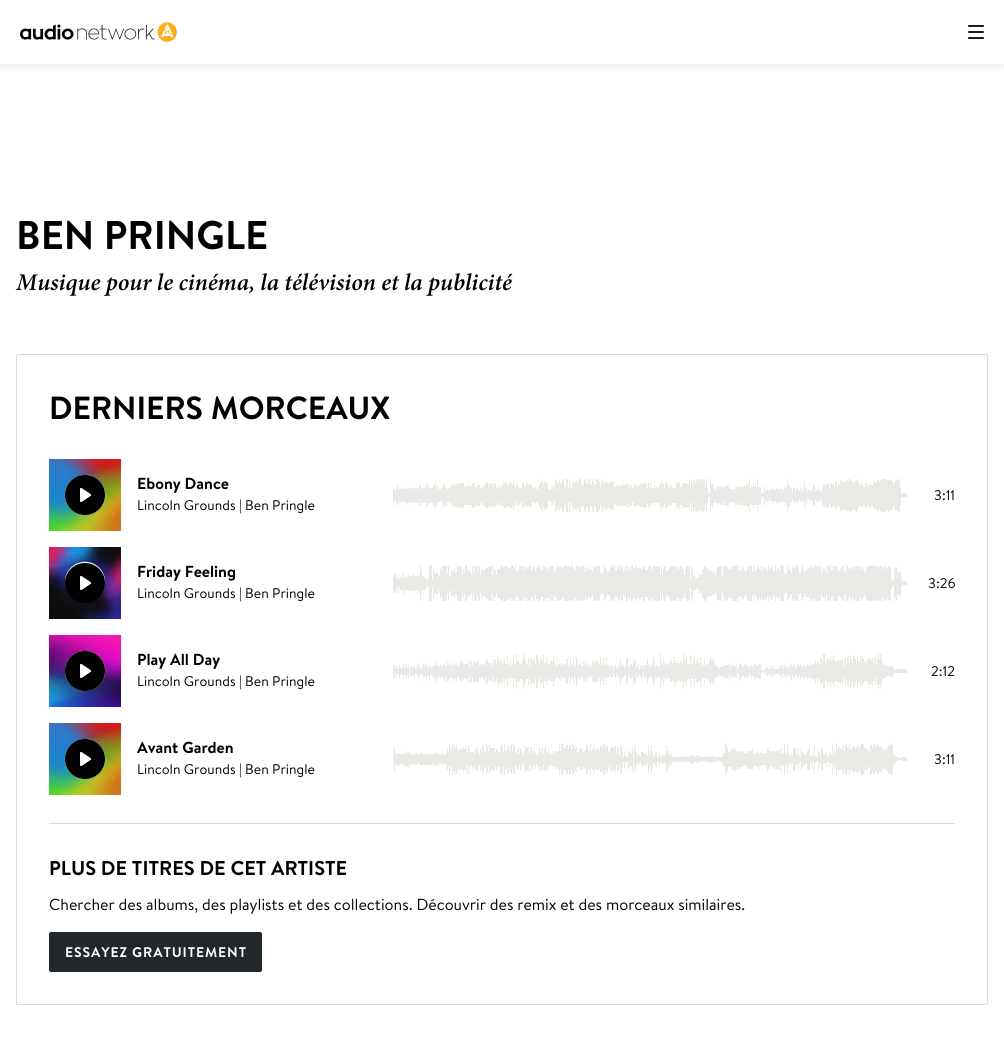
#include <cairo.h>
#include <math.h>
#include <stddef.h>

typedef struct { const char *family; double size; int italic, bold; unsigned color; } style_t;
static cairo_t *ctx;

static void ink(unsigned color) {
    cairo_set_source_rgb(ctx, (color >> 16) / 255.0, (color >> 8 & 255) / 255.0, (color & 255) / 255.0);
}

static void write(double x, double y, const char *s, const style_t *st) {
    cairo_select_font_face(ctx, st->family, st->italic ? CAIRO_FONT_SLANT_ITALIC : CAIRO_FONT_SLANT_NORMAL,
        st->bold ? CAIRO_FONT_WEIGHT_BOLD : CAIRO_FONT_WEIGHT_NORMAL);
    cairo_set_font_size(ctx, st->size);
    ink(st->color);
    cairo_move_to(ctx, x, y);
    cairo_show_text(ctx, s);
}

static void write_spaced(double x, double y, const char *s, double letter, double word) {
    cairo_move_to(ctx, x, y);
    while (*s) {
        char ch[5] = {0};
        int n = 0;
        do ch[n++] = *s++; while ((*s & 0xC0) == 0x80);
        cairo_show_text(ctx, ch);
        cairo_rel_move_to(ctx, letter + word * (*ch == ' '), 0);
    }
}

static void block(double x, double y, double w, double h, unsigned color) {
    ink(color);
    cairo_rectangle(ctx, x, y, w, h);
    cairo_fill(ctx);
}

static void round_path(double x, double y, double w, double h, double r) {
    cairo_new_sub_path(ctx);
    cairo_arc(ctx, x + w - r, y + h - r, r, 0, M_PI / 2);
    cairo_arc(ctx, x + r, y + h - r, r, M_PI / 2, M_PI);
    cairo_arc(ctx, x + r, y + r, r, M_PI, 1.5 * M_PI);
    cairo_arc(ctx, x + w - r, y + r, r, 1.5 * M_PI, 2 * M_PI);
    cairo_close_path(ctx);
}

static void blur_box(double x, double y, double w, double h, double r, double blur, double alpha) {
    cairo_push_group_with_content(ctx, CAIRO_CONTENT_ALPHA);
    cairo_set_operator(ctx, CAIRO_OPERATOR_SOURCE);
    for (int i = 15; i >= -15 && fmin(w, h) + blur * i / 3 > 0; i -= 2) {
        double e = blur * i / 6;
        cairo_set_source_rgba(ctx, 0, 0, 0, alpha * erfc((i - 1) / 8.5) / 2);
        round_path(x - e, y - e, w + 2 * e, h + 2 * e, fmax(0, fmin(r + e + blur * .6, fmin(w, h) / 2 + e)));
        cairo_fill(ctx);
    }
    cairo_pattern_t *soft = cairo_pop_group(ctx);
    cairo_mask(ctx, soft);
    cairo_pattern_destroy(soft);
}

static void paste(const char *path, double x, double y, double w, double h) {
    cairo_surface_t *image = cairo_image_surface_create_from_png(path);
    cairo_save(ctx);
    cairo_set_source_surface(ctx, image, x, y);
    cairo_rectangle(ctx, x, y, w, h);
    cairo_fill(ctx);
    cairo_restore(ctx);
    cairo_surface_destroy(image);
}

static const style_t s1 = {"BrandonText", 40, 0, 0, 0x010101};
static const style_t s2 = {"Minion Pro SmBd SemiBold", 24, 1, 0, 0x010101};
static const style_t s3 = {"BrandonText", 32, 0, 0, 0x010101};
static const style_t s4 = {"BrandonText", 16, 0, 0, 0x010101};
static const style_t s5 = {"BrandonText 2", 14, 0, 0, 0x010101};
static const style_t s6 = {"BrandonText", 20, 0, 0, 0x010101};
static const style_t s7 = {"BrandonText 2", 16, 0, 0, 0x010101};

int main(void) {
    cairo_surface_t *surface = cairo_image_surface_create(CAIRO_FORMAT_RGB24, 1004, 1039);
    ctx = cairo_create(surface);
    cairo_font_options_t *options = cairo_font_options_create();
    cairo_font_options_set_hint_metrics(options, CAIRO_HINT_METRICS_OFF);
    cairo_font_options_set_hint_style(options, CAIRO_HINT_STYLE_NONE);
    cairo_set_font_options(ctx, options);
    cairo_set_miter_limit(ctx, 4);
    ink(0xffffff);
    cairo_paint(ctx);
    cairo_save(ctx);
    cairo_rectangle(ctx, 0, 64, 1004, 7);
    cairo_clip(ctx);
    ink(0x000000);
    blur_box(0, 2, 1004, 64, 0, 7.5, 0.08);
    cairo_restore(ctx);
    paste("pic1.png", 20, 22, 157, 20);
    cairo_new_path(ctx);
    cairo_move_to(ctx, 969, 26);
    cairo_line_to(ctx, 983, 26);
    cairo_move_to(ctx, 969, 32);
    cairo_line_to(ctx, 983, 32);
    cairo_move_to(ctx, 969, 38);
    cairo_line_to(ctx, 983, 38);
    ink(0x181c21);
    cairo_set_line_cap(ctx, CAIRO_LINE_CAP_ROUND);
    cairo_stroke(ctx);
    write(16, 249, "BEN PRINGLE", &s1);
    write(16, 290, "Musique pour le cinéma, la télévision et la publicité", &s2);
    round_path(16.5, 354.5, 971, 650, 1.5);
    ink(0xd9dad9);
    cairo_set_line_width(ctx, 1);
    cairo_set_line_cap(ctx, CAIRO_LINE_CAP_BUTT);
    cairo_stroke(ctx);
    write(49, 419, "DERNIERS MORCEAUX", &s3);
    paste("pic2.png", 49, 459, 72, 72);
    cairo_arc(ctx, 85, 495, 20, 0, 2 * M_PI);
    cairo_fill(ctx);
    paste("pic3.png", 80, 487, 12, 16);
    write(137, 489, "Ebony Dance", &s4);
    write(934, 500, "3:11", &s5);
    write(137, 510, "Lincoln Grounds | Ben Pringle", &s5);
    paste("pic4.png", 393, 479, 514, 33);
    paste("pic5.png", 49, 547, 72, 72);
    cairo_arc(ctx, 85, 583, 20, 0, 2 * M_PI);
    cairo_fill(ctx);
    paste("pic3.png", 80, 575, 12, 16);
    write(137, 577, "Friday Feeling", &s4);
    write(928, 588, "3:26", &s5);
    write(137, 598, "Lincoln Grounds | Ben Pringle", &s5);
    paste("pic6.png", 393, 565, 514, 36);
    paste("pic7.png", 49, 635, 72, 72);
    cairo_arc(ctx, 85, 671, 20, 0, 2 * M_PI);
    cairo_fill(ctx);
    paste("pic3.png", 80, 663, 12, 16);
    write(137, 665, "Play All Day", &s4);
    write(931, 676, "2:12", &s5);
    write(137, 686, "Lincoln Grounds | Ben Pringle", &s5);
    paste("pic8.png", 393, 654, 514, 35);
    paste("pic2.png", 49, 723, 72, 72);
    cairo_arc(ctx, 85, 759, 20, 0, 2 * M_PI);
    cairo_fill(ctx);
    paste("pic3.png", 80, 751, 12, 16);
    write(137, 753, "Avant Garden", &s4);
    write(934, 764, "3:11", &s5);
    write(137, 774, "Lincoln Grounds | Ben Pringle", &s5);
    paste("pic9.png", 393, 743, 514, 32);
    block(49, 823, 906, 1, 0xd9dad9);
    write(49, 875, "PLUS DE TITRES DE CET ARTISTE", &s6);
    write(49, 910, "Chercher des albums, des playlists et des collections. Découvrir des remix et des morceaux similaires.", &s7);
    ink(0x22272a);
    round_path(49, 932, 213, 40, 2);
    cairo_fill(ctx);
    cairo_select_font_face(ctx, "BrandonText", CAIRO_FONT_SLANT_NORMAL, CAIRO_FONT_WEIGHT_NORMAL);
    cairo_set_font_size(ctx, 14);
    ink(0xffffff);
    write_spaced(65, 957, "ESSAYEZ GRATUITEMENT", 0.9, 0);
    cairo_surface_write_to_png(surface, "screenshot.png");
    cairo_font_options_destroy(options);
    cairo_destroy(ctx);
    cairo_surface_destroy(surface);
    return 0;
}
